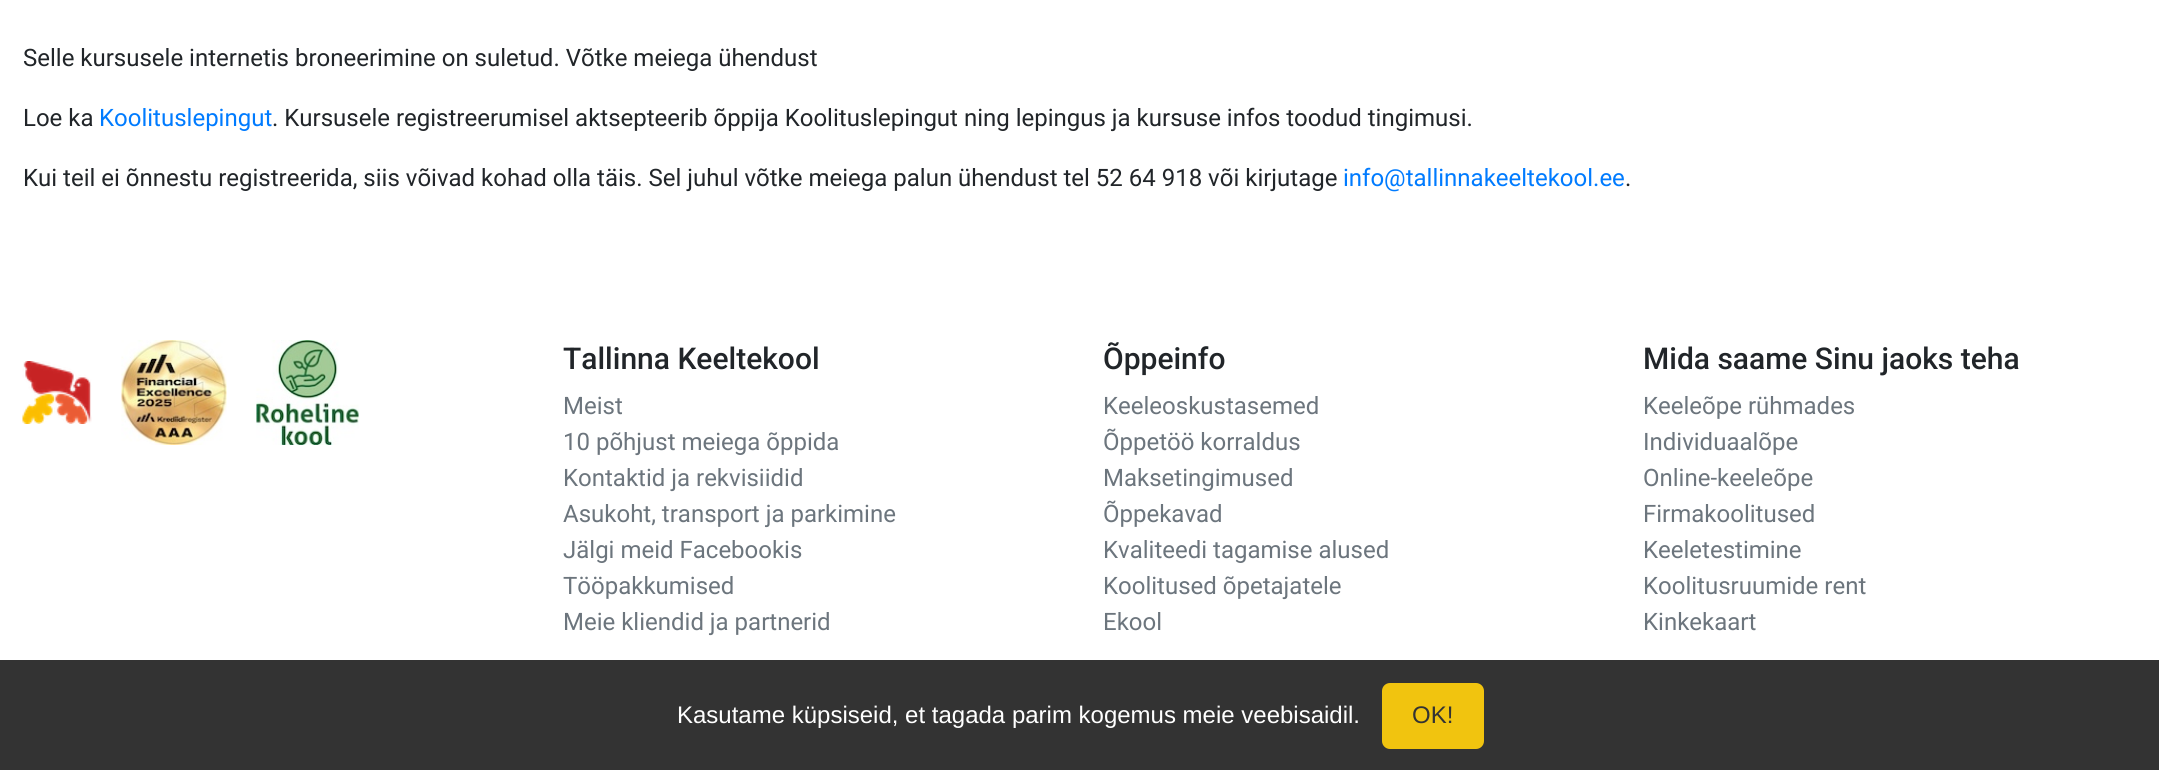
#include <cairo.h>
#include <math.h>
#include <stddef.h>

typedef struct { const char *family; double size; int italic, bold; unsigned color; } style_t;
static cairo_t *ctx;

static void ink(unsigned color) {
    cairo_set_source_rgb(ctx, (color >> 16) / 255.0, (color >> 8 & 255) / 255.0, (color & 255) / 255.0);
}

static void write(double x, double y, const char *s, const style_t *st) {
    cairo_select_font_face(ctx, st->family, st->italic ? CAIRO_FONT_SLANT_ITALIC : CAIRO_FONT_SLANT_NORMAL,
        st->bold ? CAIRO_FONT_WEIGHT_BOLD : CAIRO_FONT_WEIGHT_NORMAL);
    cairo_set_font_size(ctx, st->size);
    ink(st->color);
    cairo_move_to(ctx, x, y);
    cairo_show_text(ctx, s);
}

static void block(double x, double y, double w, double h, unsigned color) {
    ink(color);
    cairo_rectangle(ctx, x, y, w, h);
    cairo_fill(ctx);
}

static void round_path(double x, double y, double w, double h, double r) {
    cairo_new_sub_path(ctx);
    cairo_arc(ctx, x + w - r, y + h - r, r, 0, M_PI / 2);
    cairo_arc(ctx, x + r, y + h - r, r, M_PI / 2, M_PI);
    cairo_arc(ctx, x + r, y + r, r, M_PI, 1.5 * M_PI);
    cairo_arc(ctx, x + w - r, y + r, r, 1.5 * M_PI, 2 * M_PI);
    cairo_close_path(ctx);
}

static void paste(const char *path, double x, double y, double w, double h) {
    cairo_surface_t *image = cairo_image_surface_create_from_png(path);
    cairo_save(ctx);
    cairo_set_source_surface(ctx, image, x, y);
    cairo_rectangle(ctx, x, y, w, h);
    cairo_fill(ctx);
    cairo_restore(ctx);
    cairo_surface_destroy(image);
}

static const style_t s1 = {"Roboto", 24, 0, 0, 0x212529};
static const style_t s2 = {"Roboto", 24, 0, 0, 0x007bff};
static const style_t s3 = {"Roboto Medium", 30, 0, 0, 0x212529};
static const style_t s4 = {"Roboto", 24, 0, 0, 0x6c757d};
static const style_t s5 = {"Liberation Sans", 24, 0, 0, 0xffffff};
static const style_t s6 = {"Liberation Sans", 24, 0, 0, 0x333333};

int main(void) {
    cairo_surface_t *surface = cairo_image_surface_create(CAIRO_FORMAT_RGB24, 2159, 770);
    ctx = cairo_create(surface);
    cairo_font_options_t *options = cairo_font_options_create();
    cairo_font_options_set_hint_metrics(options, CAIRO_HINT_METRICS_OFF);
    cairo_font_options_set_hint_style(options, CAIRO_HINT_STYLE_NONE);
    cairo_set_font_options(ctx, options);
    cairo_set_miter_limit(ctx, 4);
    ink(0xffffff);
    cairo_paint(ctx);
    write(23, 66, "Selle kursusele internetis broneerimine on suletud. Võtke meiega ühendust", &s1);
    write(23, 126, "Loe ka", &s1);
    write(99, 126, "Koolituslepingut", &s2);
    write(272, 126, ". Kursusele registreerumisel aktsepteerib õppija Koolituslepingut ning lepingus ja kursuse infos toodud tingimusi.", &s1);
    write(23, 186, "Kui teil ei õnnestu registreerida, siis võivad kohad olla täis. Sel juhul võtke meiega palun ühendust tel 52 64 918 või kirjutage", &s1);
    write(1343, 186, "info@tallinnakeeltekool.ee", &s2);
    write(1625, 186, ".", &s1);
    paste("pic1.png", 22, 361, 70, 63);
    paste("pic2.png", 121, 340, 106, 105);
    paste("pic3.png", 256, 340, 103, 105);
    write(563, 369, "Tallinna Keeltekool", &s3);
    write(563, 414, "Meist", &s4);
    write(563, 450, "10 põhjust meiega õppida", &s4);
    write(563, 486, "Kontaktid ja rekvisiidid", &s4);
    write(563, 522, "Asukoht, transport ja parkimine", &s4);
    write(563, 558, "Jälgi meid Facebookis", &s4);
    write(563, 594, "Tööpakkumised", &s4);
    write(563, 630, "Meie kliendid ja partnerid", &s4);
    write(1103, 369, "Õppeinfo", &s3);
    write(1103, 414, "Keeleoskustasemed", &s4);
    write(1103, 450, "Õppetöö korraldus", &s4);
    write(1103, 486, "Maksetingimused", &s4);
    write(1103, 522, "Õppekavad", &s4);
    write(1103, 558, "Kvaliteedi tagamise alused", &s4);
    write(1103, 594, "Koolitused õpetajatele", &s4);
    write(1103, 630, "Ekool", &s4);
    write(1643, 369, "Mida saame Sinu jaoks teha", &s3);
    write(1643, 414, "Keeleõpe rühmades", &s4);
    write(1643, 450, "Individuaalõpe", &s4);
    write(1643, 486, "Online-keeleõpe", &s4);
    write(1643, 522, "Firmakoolitused", &s4);
    write(1643, 558, "Keeletestimine", &s4);
    write(1643, 594, "Koolitusruumide rent", &s4);
    write(1643, 630, "Kinkekaart", &s4);
    block(0, 660, 2159, 110, 0x333333);
    write(677, 723, "Kasutame küpsiseid, et tagada parim kogemus meie veebisaidil.", &s5);
    ink(0xf1c40f);
    round_path(1382, 683, 102, 66, 8);
    cairo_fill(ctx);
    write(1412, 723, "OK!", &s6);
    cairo_surface_write_to_png(surface, "screenshot.png");
    cairo_font_options_destroy(options);
    cairo_destroy(ctx);
    cairo_surface_destroy(surface);
    return 0;
}
